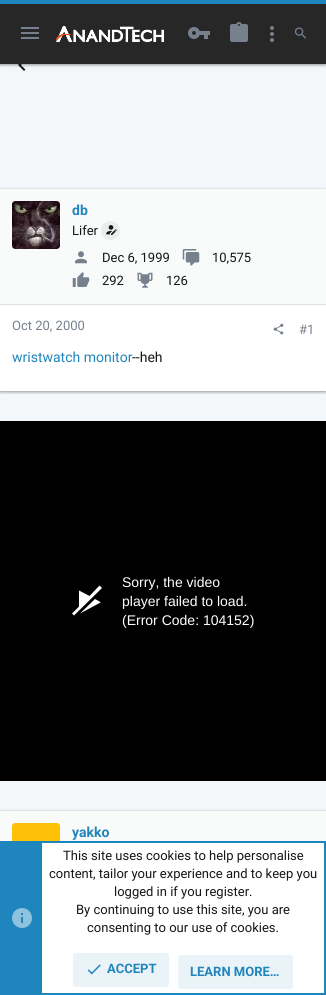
#include <cairo.h>
#include <math.h>
#include <stddef.h>

typedef struct { const char *family; double size; int italic, bold; unsigned color; } style_t;
static cairo_t *ctx;

static void ink(unsigned color) {
    cairo_set_source_rgb(ctx, (color >> 16) / 255.0, (color >> 8 & 255) / 255.0, (color & 255) / 255.0);
}

static void write(double x, double y, const char *s, const style_t *st) {
    cairo_select_font_face(ctx, st->family, st->italic ? CAIRO_FONT_SLANT_ITALIC : CAIRO_FONT_SLANT_NORMAL,
        st->bold ? CAIRO_FONT_WEIGHT_BOLD : CAIRO_FONT_WEIGHT_NORMAL);
    cairo_set_font_size(ctx, st->size);
    ink(st->color);
    cairo_move_to(ctx, x, y);
    cairo_show_text(ctx, s);
}

static void block(double x, double y, double w, double h, unsigned color) {
    ink(color);
    cairo_rectangle(ctx, x, y, w, h);
    cairo_fill(ctx);
}

static void round_path(double x, double y, double w, double h, double r) {
    cairo_new_sub_path(ctx);
    cairo_arc(ctx, x + w - r, y + h - r, r, 0, M_PI / 2);
    cairo_arc(ctx, x + r, y + h - r, r, M_PI / 2, M_PI);
    cairo_arc(ctx, x + r, y + r, r, M_PI, 1.5 * M_PI);
    cairo_arc(ctx, x + w - r, y + r, r, 1.5 * M_PI, 2 * M_PI);
    cairo_close_path(ctx);
}

static void blur_box(double x, double y, double w, double h, double r, double blur, double alpha) {
    cairo_push_group_with_content(ctx, CAIRO_CONTENT_ALPHA);
    cairo_set_operator(ctx, CAIRO_OPERATOR_SOURCE);
    for (int i = 15; i >= -15 && fmin(w, h) + blur * i / 3 > 0; i -= 2) {
        double e = blur * i / 6;
        cairo_set_source_rgba(ctx, 0, 0, 0, alpha * erfc((i - 1) / 8.5) / 2);
        round_path(x - e, y - e, w + 2 * e, h + 2 * e, fmax(0, fmin(r + e + blur * .6, fmin(w, h) / 2 + e)));
        cairo_fill(ctx);
    }
    cairo_pattern_t *soft = cairo_pop_group(ctx);
    cairo_mask(ctx, soft);
    cairo_pattern_destroy(soft);
}

static void paste(const char *path, double x, double y, double w, double h) {
    cairo_surface_t *image = cairo_image_surface_create_from_png(path);
    cairo_save(ctx);
    cairo_set_source_surface(ctx, image, x, y);
    cairo_rectangle(ctx, x, y, w, h);
    cairo_fill(ctx);
    cairo_restore(ctx);
    cairo_surface_destroy(image);
}

static const style_t s1 = {"Roboto", 14, 0, 1, 0x1f85bd};
static const style_t s2 = {"Roboto", 13, 0, 0, 0x141618};
static const style_t s3 = {"Roboto", 13, 0, 0, 0x76818d};
static const style_t s4 = {"Roboto", 14, 0, 0, 0x1f85bd};
static const style_t s5 = {"Roboto", 14, 0, 0, 0x141618};
static const style_t s6 = {"Liberation Sans", 14, 0, 0, 0xffffff};
static const style_t s7 = {"Roboto", 13, 0, 1, 0x1f85bd};

int main(void) {
    cairo_surface_t *surface = cairo_image_surface_create(CAIRO_FORMAT_RGB24, 326, 995);
    ctx = cairo_create(surface);
    cairo_font_options_t *options = cairo_font_options_create();
    cairo_font_options_set_hint_metrics(options, CAIRO_HINT_METRICS_OFF);
    cairo_font_options_set_hint_style(options, CAIRO_HINT_STYLE_NONE);
    cairo_set_font_options(ctx, options);
    cairo_set_miter_limit(ctx, 4);
    ink(0xf4f7f9);
    cairo_paint(ctx);
    paste("pic7.png", 18, 64, 8, 7);
    ink(0x000000);
    blur_box(0, 1, 326, 64, 0, 1.5, 0.2);
    blur_box(0, 2, 326, 64, 0, 1, 0.12);
    blur_box(0, 0, 326, 64, 0, 1, 0.14);
    block(0, 4, 326, 60, 0x272727);
    block(0, 0, 326, 4, 0x1f85bd);
    paste("pic1.png", 21, 27, 18, 12);
    paste("pic2.png", 56, 26, 108, 17);
    paste("pic3.png", 188, 27, 22, 12);
    paste("pic4.png", 230, 22, 18, 20);
    paste("pic5.png", 270, 26, 4, 16);
    paste("pic6.png", 294, 27, 12, 12);
    ink(0x000000);
    blur_box(0, 190, 326, 202, 0, 1.5, 0.2);
    blur_box(0, 191, 326, 202, 0, 1, 0.12);
    blur_box(0, 189, 326, 202, 0, 1, 0.14);
    block(0, 305, 326, 86, 0xffffff);
    block(0, 189, 326, 115, 0xf9fafa);
    block(0, 304, 326, 1, 0xe0e0e0);
    ink(0xffffff);
    round_path(12, 201, 48, 48, 3);
    cairo_fill(ctx);
    paste("pic8.png", 12, 201, 48, 48);
    write(72, 215, "db", &s1);
    write(72, 235, "Lifer", &s2);
    ink(0xebecee);
    cairo_new_path(ctx);
    cairo_arc(ctx, 110.5, 230.5, 9.5, 0, 2 * M_PI);
    cairo_fill(ctx);
    paste("pic9.png", 106, 225, 11, 10);
    paste("pic10.png", 75, 251, 12, 13);
    write(102, 262, "Dec 6, 1999", &s2);
    paste("pic11.png", 182, 249, 18, 17);
    write(212, 262, "10,575", &s2);
    paste("pic12.png", 72, 272, 18, 15);
    write(102, 285, "292", &s2);
    paste("pic13.png", 137, 272, 16, 16);
    write(166, 285, "126", &s2);
    write(12, 330, "Oct 20, 2000", &s3);
    paste("pic14.png", 273, 323, 11, 12);
    write(299, 334, "#1", &s3);
    write(12, 362, "wristwatch monitor", &s4);
    write(132, 362, "--heh", &s5);
    block(0, 421, 326, 360, 0x000000);
    ink(0xffffff);
    cairo_new_path(ctx);
    cairo_move_to(ctx, 100.5, 602.5);
    cairo_line_to(ctx, 80, 613.5);
    cairo_line_to(ctx, 95, 599);
    cairo_curve_to(ctx, 100.5, 602, 101.5, 602.5, 100.5, 602.5);
    cairo_close_path(ctx);
    cairo_move_to(ctx, 99.5, 585.5);
    cairo_line_to(ctx, 89.5, 596);
    cairo_line_to(ctx, 79, 590.5);
    cairo_line_to(ctx, 79, 606.5);
    cairo_line_to(ctx, 72, 613.5);
    cairo_line_to(ctx, 74, 615.5);
    cairo_line_to(ctx, 102, 588);
    cairo_close_path(ctx);
    cairo_fill(ctx);
    write(122, 587, "Sorry, the video", &s6);
    write(122, 606, "player failed to load.", &s6);
    write(122, 625, "(Error Code: 104152)", &s6);
    ink(0x000000);
    blur_box(0, 812, 326, 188, 0, 1.5, 0.2);
    blur_box(0, 811, 326, 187, 0, 1, 0.14);
    block(0, 811, 326, 30, 0xf9fafa);
    ink(0xffc107);
    round_path(12, 823, 48, 48, 3);
    cairo_fill(ctx);
    write(72, 837, "yakko", &s1);
    block(42, 843, 282, 150, 0xffffff);
    cairo_rectangle(ctx, 1, 842, 324, 152);
    ink(0x1f85bd);
    cairo_stroke(ctx);
    block(2, 843, 40, 150, 0x1f85bd);
    paste("pic15.png", 12, 908, 20, 20);
    write(63, 860, "This site uses cookies to help personalise", &s2);
    write(49, 878, "content, tailor your experience and to keep you", &s2);
    write(114, 896, "logged in if you register.", &s2);
    write(76, 914, "By continuing to use this site, you are", &s2);
    write(87, 932, "consenting to our use of cookies.", &s2);
    ink(0xe9f3f8);
    round_path(73, 953, 96, 34, 3);
    cairo_fill(ctx);
    paste("pic16.png", 87, 964, 14, 11);
    write(107, 973, "ACCEPT", &s7);
    ink(0xe9f3f8);
    round_path(178, 955, 115, 34, 3);
    cairo_fill(ctx);
    write(190, 976, "LEARN MORE…", &s7);
    cairo_surface_write_to_png(surface, "screenshot.png");
    cairo_font_options_destroy(options);
    cairo_destroy(ctx);
    cairo_surface_destroy(surface);
    return 0;
}
